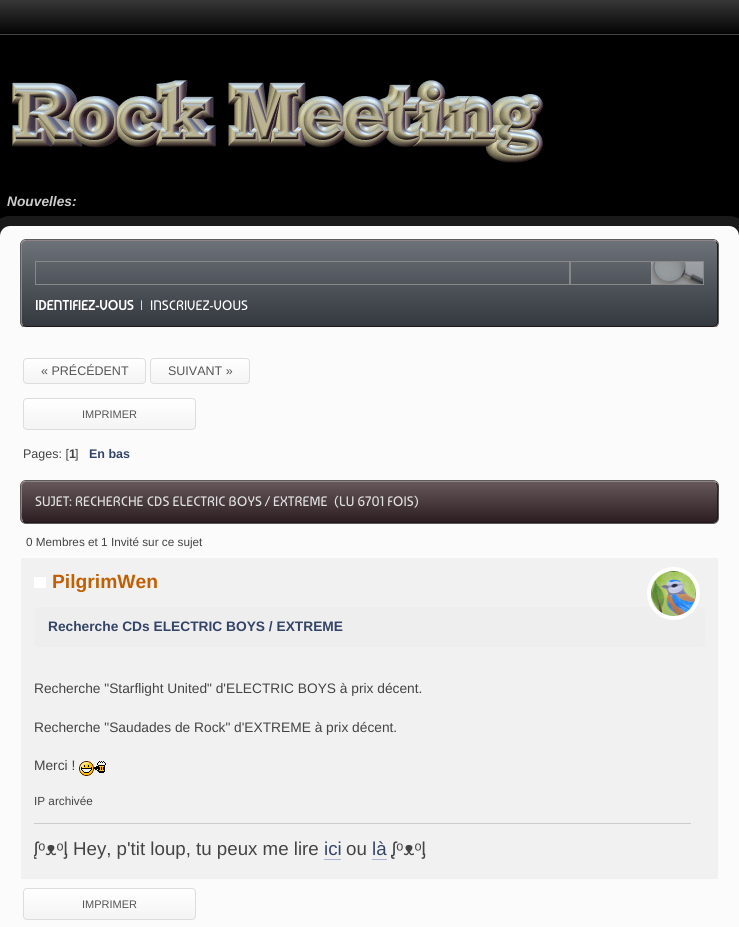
#include <cairo.h>
#include <math.h>
#include <stddef.h>

typedef struct { const char *family; double size; int italic, bold; unsigned color; } style_t;
static cairo_t *ctx;

static void ink(unsigned color) {
    cairo_set_source_rgb(ctx, (color >> 16) / 255.0, (color >> 8 & 255) / 255.0, (color & 255) / 255.0);
}

static void write(double x, double y, const char *s, const style_t *st) {
    cairo_select_font_face(ctx, st->family, st->italic ? CAIRO_FONT_SLANT_ITALIC : CAIRO_FONT_SLANT_NORMAL,
        st->bold ? CAIRO_FONT_WEIGHT_BOLD : CAIRO_FONT_WEIGHT_NORMAL);
    cairo_set_font_size(ctx, st->size);
    ink(st->color);
    cairo_move_to(ctx, x, y);
    cairo_show_text(ctx, s);
}

static void block(double x, double y, double w, double h, unsigned color) {
    ink(color);
    cairo_rectangle(ctx, x, y, w, h);
    cairo_fill(ctx);
}

static void round_path(double x, double y, double w, double h, double r) {
    cairo_new_sub_path(ctx);
    cairo_arc(ctx, x + w - r, y + h - r, r, 0, M_PI / 2);
    cairo_arc(ctx, x + r, y + h - r, r, M_PI / 2, M_PI);
    cairo_arc(ctx, x + r, y + r, r, M_PI, 1.5 * M_PI);
    cairo_arc(ctx, x + w - r, y + r, r, 1.5 * M_PI, 2 * M_PI);
    cairo_close_path(ctx);
}

static void paste(const char *path, double x, double y, double w, double h) {
    cairo_surface_t *image = cairo_image_surface_create_from_png(path);
    cairo_save(ctx);
    cairo_set_source_surface(ctx, image, x, y);
    cairo_rectangle(ctx, x, y, w, h);
    cairo_fill(ctx);
    cairo_restore(ctx);
    cairo_surface_destroy(image);
}

static const style_t s1 = {"Liberation Sans", 13.75, 1, 1, 0xcccccc};
static const style_t s2 = {"Baumans", 13.75, 0, 1, 0xffffff};
static const style_t s3 = {"Baumans", 13.75, 0, 0, 0xe0e0e0};
static const style_t s4 = {"Baumans", 13.75, 0, 0, 0xffffff};
static const style_t s5 = {"Liberation Sans", 12.5, 0, 0, 0x555555};
static const style_t s6 = {"Liberation Sans", 11, 0, 0, 0x555555};
static const style_t s7 = {"Liberation Sans", 12.5, 0, 0, 0x444444};
static const style_t s8 = {"Liberation Sans", 12.5, 0, 1, 0x444444};
static const style_t s9 = {"Liberation Sans", 12.5, 0, 1, 0x334466};
static const style_t s10 = {"Liberation Sans", 11.75, 0, 0, 0x444444};
static const style_t s11 = {"Liberation Sans", 19.25, 0, 1, 0xc06002};
static const style_t s12 = {"Liberation Sans", 13.75, 0, 1, 0x334466};
static const style_t s13 = {"Liberation Sans", 13.75, 0, 0, 0x444444};
static const style_t s14 = {"Liberation Sans", 18.7, 0, 0, 0x444444};
static const style_t s15 = {"Liberation Sans", 18.7, 0, 0, 0x334466};

int main(void) {
    cairo_surface_t *surface = cairo_image_surface_create(CAIRO_FORMAT_RGB24, 739, 927);
    ctx = cairo_create(surface);
    cairo_font_options_t *options = cairo_font_options_create();
    cairo_font_options_set_hint_metrics(options, CAIRO_HINT_METRICS_OFF);
    cairo_font_options_set_hint_style(options, CAIRO_HINT_STYLE_NONE);
    cairo_set_font_options(ctx, options);
    cairo_set_miter_limit(ctx, 4);
    cairo_pattern_t *gradient;
    ink(0x000000);
    cairo_paint(ctx);
    gradient = cairo_pattern_create_linear(370, 0, 370, 34);
    cairo_pattern_add_color_stop_rgba(gradient, 0, 0.216, 0.216, 0.216, 1);
    cairo_pattern_add_color_stop_rgba(gradient, 1, 0.012, 0.012, 0.012, 1);
    cairo_set_source(ctx, gradient);
    cairo_pattern_destroy(gradient);
    cairo_rectangle(ctx, 0, 0, 739, 34);
    cairo_fill(ctx);
    block(0, 34, 739, 1, 0x444444);
    paste("pic1.png", 12, 80, 531, 83);
    write(7, 206, "Nouvelles:", &s1);
    round_path(-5, 221, 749, 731, 15);
    ink(0x1a1a1a);
    cairo_set_line_width(ctx, 10);
    cairo_stroke(ctx);
    ink(0xfbfbfb);
    round_path(0, 226, 739, 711, 10);
    cairo_fill(ctx);
    round_path(20.5, 239.5, 698, 88, 5.5);
    ink(0x5b5b5b);
    cairo_set_line_width(ctx, 1);
    cairo_stroke(ctx);
    cairo_save(ctx);
    round_path(21, 240, 697, 87, 5);
    cairo_clip(ctx);
    gradient = cairo_pattern_create_linear(370, 241, 370, 326);
    cairo_pattern_add_color_stop_rgba(gradient, 0, 0.427, 0.447, 0.475, 1);
    cairo_pattern_add_color_stop_rgba(gradient, 1, 0.204, 0.22, 0.247, 1);
    cairo_set_source(ctx, gradient);
    cairo_pattern_destroy(gradient);
    cairo_rectangle(ctx, 21, 241, 697, 85);
    cairo_fill(ctx);
    cairo_restore(ctx);
    cairo_new_path(ctx);
    cairo_move_to(ctx, 716, 242);
    cairo_curve_to(ctx, 717, 242.5, 717.5, 244, 717.5, 245);
    cairo_line_to(ctx, 717.5, 322);
    cairo_curve_to(ctx, 717.5, 323, 717, 324.5, 716, 325);
    cairo_curve_to(ctx, 715.5, 326, 714, 326.5, 713, 326.5);
    cairo_line_to(ctx, 26, 326.5);
    cairo_curve_to(ctx, 25, 326.5, 23.5, 326, 23, 325);
    ink(0x231619);
    cairo_stroke(ctx);
    cairo_new_path(ctx);
    cairo_move_to(ctx, 23, 325);
    cairo_curve_to(ctx, 22, 324.5, 21.5, 323, 21.5, 322);
    cairo_line_to(ctx, 21.5, 245);
    cairo_curve_to(ctx, 21.5, 244, 22, 242.5, 23, 242);
    cairo_curve_to(ctx, 23.5, 241, 25, 240.5, 26, 240.5);
    cairo_line_to(ctx, 713, 240.5);
    cairo_curve_to(ctx, 714, 240.5, 715.5, 241, 716, 242);
    ink(0x8e8487);
    cairo_stroke(ctx);
    cairo_rectangle(ctx, 35.5, 261.5, 534, 23);
    ink(0x888888);
    cairo_stroke(ctx);
    paste("pic2.png", 651, 262, 52, 22);
    cairo_rectangle(ctx, 570.5, 261.5, 133, 23);
    cairo_stroke(ctx);
    write(35, 310, "IDENTIFIEZ-VOUS", &s2);
    write(140, 310, "|", &s3);
    write(150, 310, "INSCRIVEZ-VOUS", &s4);
    block(21, 327, 697, 1, 0xf7f7f7);
    cairo_save(ctx);
    round_path(23, 358, 123, 26, 4);
    cairo_clip(ctx);
    gradient = cairo_pattern_create_linear(85, 359, 85, 383);
    cairo_pattern_add_color_stop_rgba(gradient, 0, 1, 1, 1, 1);
    cairo_pattern_add_color_stop_rgba(gradient, 1, 0.957, 0.957, 0.957, 1);
    cairo_set_source(ctx, gradient);
    cairo_pattern_destroy(gradient);
    cairo_rectangle(ctx, 23, 359, 123, 24);
    cairo_fill(ctx);
    cairo_restore(ctx);
    round_path(23.5, 358.5, 122, 25, 3.5);
    ink(0xdddddd);
    cairo_stroke(ctx);
    write(41, 375, "« PRÉCÉDENT", &s5);
    cairo_save(ctx);
    round_path(150, 358, 100, 26, 4);
    cairo_clip(ctx);
    gradient = cairo_pattern_create_linear(200, 359, 200, 383);
    cairo_pattern_add_color_stop_rgba(gradient, 0, 1, 1, 1, 1);
    cairo_pattern_add_color_stop_rgba(gradient, 1, 0.957, 0.957, 0.957, 1);
    cairo_set_source(ctx, gradient);
    cairo_pattern_destroy(gradient);
    cairo_rectangle(ctx, 150, 359, 100, 24);
    cairo_fill(ctx);
    cairo_restore(ctx);
    round_path(150.5, 358.5, 99, 25, 3.5);
    ink(0xdddddd);
    cairo_stroke(ctx);
    write(168, 375, "SUIVANT »", &s5);
    cairo_save(ctx);
    round_path(23, 398, 173, 32, 4);
    cairo_clip(ctx);
    gradient = cairo_pattern_create_linear(110, 399, 110, 429);
    cairo_pattern_add_color_stop_rgba(gradient, 0, 1, 1, 1, 1);
    cairo_pattern_add_color_stop_rgba(gradient, 1, 0.957, 0.957, 0.957, 1);
    cairo_set_source(ctx, gradient);
    cairo_pattern_destroy(gradient);
    cairo_rectangle(ctx, 23, 399, 173, 30);
    cairo_fill(ctx);
    cairo_restore(ctx);
    round_path(23.5, 398.5, 172, 31, 3.5);
    ink(0xdddddd);
    cairo_stroke(ctx);
    write(82, 418, "IMPRIMER", &s6);
    write(23, 458, "Pages: [", &s7);
    write(69, 458, "1", &s8);
    write(75, 458, "]", &s7);
    write(89, 458, "En bas", &s9);
    round_path(20.5, 480.5, 698, 43, 5.5);
    ink(0x5b5b5b);
    cairo_stroke(ctx);
    cairo_save(ctx);
    round_path(21, 481, 697, 42, 5);
    cairo_clip(ctx);
    gradient = cairo_pattern_create_linear(370, 482, 370, 522);
    cairo_pattern_add_color_stop_rgba(gradient, 0, 0.396, 0.341, 0.353, 1);
    cairo_pattern_add_color_stop_rgba(gradient, 1, 0.173, 0.118, 0.133, 1);
    cairo_set_source(ctx, gradient);
    cairo_pattern_destroy(gradient);
    cairo_rectangle(ctx, 21, 482, 697, 40);
    cairo_fill(ctx);
    cairo_restore(ctx);
    cairo_new_path(ctx);
    cairo_move_to(ctx, 716, 483);
    cairo_curve_to(ctx, 719, 485.5, 717.5, 493.5, 717.5, 496.5);
    cairo_line_to(ctx, 717.5, 512.5);
    cairo_curve_to(ctx, 717.5, 516, 718.5, 522.5, 713, 522.5);
    cairo_line_to(ctx, 24.5, 522.5);
    cairo_line_to(ctx, 23, 521);
    ink(0x231619);
    cairo_stroke(ctx);
    cairo_new_path(ctx);
    cairo_move_to(ctx, 23, 521);
    cairo_curve_to(ctx, 20, 518.5, 21.5, 510.5, 21.5, 507.5);
    cairo_line_to(ctx, 21.5, 491.5);
    cairo_curve_to(ctx, 21.5, 488, 20.5, 481.5, 26, 481.5);
    cairo_line_to(ctx, 714.5, 481.5);
    cairo_line_to(ctx, 716, 483);
    ink(0x8e8487);
    cairo_stroke(ctx);
    write(35, 506, "SUJET: RECHERCHE CDS ELECTRIC BOYS / EXTREME  (LU 6701 FOIS)", &s3);
    write(26, 546, "0 Membres et 1 Invité sur ce sujet", &s10);
    block(21, 558, 697, 321, 0xf1f1f1);
    block(34, 577, 12, 11, 0xffffff);
    write(52, 588, "PilgrimWen", &s11);
    ink(0xeeeeee);
    round_path(34, 607, 671, 40, 5);
    cairo_fill(ctx);
    cairo_arc(ctx, 673.5, 593.5, 24.5, 0, 2 * M_PI);
    ink(0xffffff);
    cairo_set_line_width(ctx, 4);
    cairo_stroke(ctx);
    paste("pic3.png", 651, 571, 45, 45);
    write(48, 631, "Recherche CDs ELECTRIC BOYS / EXTREME", &s12);
    write(34, 693, "Recherche \"Starflight United\" d'ELECTRIC BOYS à prix décent.", &s13);
    write(34, 732, "Recherche \"Saudades de Rock\" d'EXTREME à prix décent.", &s13);
    write(34, 770, "Merci !", &s13);
    paste("pic4.png", 79, 761, 27, 15);
    write(34, 805, "IP archivée", &s10);
    block(34, 823, 657, 1, 0xcccccc);
    cairo_save(ctx);
    cairo_rectangle(ctx, 34, 824, 657, 41);
    cairo_clip(ctx);
    write(34, 855, "ᶘᵒᴥᵒᶅ Hey, p'tit loup, tu peux me lire", &s14);
    cairo_restore(ctx);
    write(324, 855, "ici", &s15);
    block(324, 859, 17, 1, 0xa8b6cf);
    write(346, 855, "ou", &s14);
    write(372, 855, "là", &s15);
    block(372, 859, 15, 1, 0xa8b6cf);
    write(392, 855, "ᶘᵒᴥᵒᶅ", &s14);
    cairo_save(ctx);
    round_path(23, 888, 173, 32, 4);
    cairo_clip(ctx);
    gradient = cairo_pattern_create_linear(110, 889, 110, 919);
    cairo_pattern_add_color_stop_rgba(gradient, 0, 1, 1, 1, 1);
    cairo_pattern_add_color_stop_rgba(gradient, 1, 0.957, 0.957, 0.957, 1);
    cairo_set_source(ctx, gradient);
    cairo_pattern_destroy(gradient);
    cairo_rectangle(ctx, 23, 889, 173, 30);
    cairo_fill(ctx);
    cairo_restore(ctx);
    round_path(23.5, 888.5, 172, 31, 3.5);
    ink(0xdddddd);
    cairo_set_line_width(ctx, 1);
    cairo_stroke(ctx);
    write(82, 908, "IMPRIMER", &s6);
    cairo_surface_write_to_png(surface, "screenshot.png");
    cairo_font_options_destroy(options);
    cairo_destroy(ctx);
    cairo_surface_destroy(surface);
    return 0;
}
